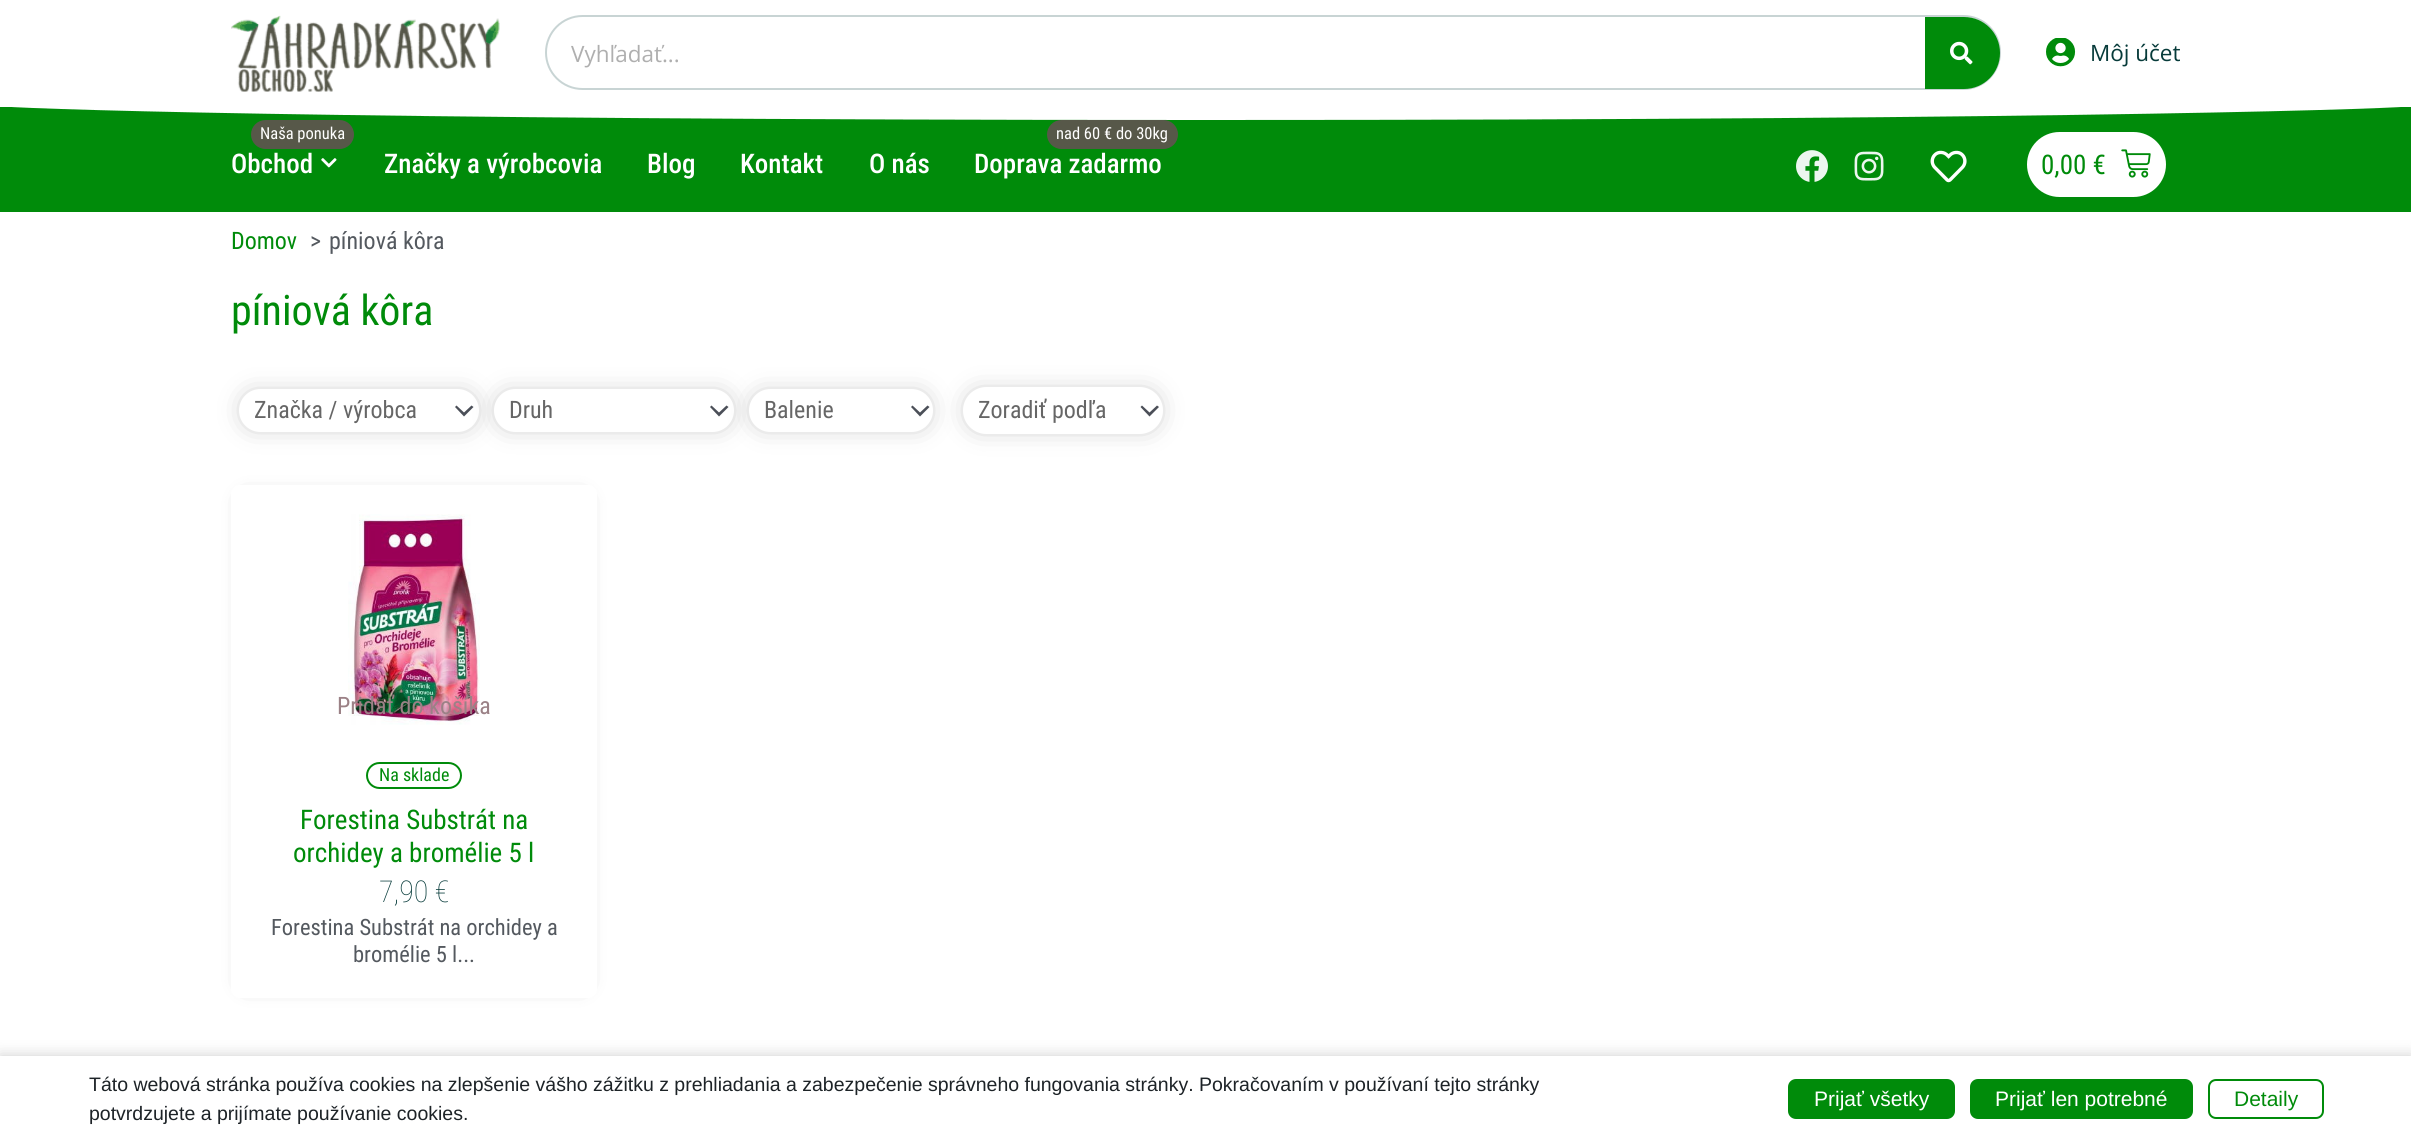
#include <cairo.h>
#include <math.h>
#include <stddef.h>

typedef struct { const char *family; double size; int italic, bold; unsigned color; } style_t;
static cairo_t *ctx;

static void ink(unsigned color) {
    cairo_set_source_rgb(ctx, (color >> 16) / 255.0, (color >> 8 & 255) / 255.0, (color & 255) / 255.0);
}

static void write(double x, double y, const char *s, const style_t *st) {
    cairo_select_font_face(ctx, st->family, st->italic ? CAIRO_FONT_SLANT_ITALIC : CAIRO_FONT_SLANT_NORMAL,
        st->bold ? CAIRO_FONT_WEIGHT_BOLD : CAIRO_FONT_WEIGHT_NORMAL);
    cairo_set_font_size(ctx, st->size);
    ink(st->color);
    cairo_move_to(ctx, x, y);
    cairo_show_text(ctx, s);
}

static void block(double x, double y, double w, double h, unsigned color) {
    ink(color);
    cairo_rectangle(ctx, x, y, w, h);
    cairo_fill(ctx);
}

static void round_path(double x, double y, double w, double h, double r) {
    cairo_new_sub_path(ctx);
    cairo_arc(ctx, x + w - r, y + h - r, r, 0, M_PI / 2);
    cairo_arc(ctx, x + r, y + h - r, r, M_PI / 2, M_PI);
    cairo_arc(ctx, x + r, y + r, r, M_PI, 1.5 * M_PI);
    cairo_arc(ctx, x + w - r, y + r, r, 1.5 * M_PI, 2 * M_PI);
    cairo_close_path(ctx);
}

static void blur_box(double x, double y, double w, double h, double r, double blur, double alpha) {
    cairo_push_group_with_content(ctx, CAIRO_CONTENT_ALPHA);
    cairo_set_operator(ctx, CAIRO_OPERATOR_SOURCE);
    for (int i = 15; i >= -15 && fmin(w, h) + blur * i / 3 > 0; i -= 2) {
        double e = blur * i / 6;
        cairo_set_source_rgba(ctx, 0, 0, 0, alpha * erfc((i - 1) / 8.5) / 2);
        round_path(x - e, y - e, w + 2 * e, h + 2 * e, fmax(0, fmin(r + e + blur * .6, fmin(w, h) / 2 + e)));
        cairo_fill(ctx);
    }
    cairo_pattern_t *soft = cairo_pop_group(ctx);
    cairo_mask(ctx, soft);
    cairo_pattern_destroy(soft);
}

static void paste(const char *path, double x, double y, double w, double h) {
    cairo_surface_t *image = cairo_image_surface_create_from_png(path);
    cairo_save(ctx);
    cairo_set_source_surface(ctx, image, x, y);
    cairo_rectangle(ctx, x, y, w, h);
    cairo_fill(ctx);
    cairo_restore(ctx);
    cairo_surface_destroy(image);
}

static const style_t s1 = {"Open Sans", 22.5, 0, 0, 0xafafaf};
static const style_t s2 = {"Open Sans", 22.5, 0, 0, 0x073b3a};
static const style_t s3 = {"Roboto Condensed", 16.5, 0, 0, 0xffffff};
static const style_t s4 = {"Roboto Condensed Medium", 27, 0, 0, 0xffffff};
static const style_t s5 = {"Roboto Condensed", 27, 0, 0, 0x008b0a};
static const style_t s6 = {"Roboto Condensed", 24, 0, 0, 0x008b0a};
static const style_t s7 = {"Roboto Condensed", 24, 0, 0, 0x54595f};
static const style_t s8 = {"Roboto Condensed", 42, 0, 0, 0x008b0a};
static const style_t s9 = {"Roboto Condensed", 24, 0, 0, 0x666666};
static const style_t s10 = {"Roboto Condensed", 24, 0, 0, 0x9b8186};
static const style_t s11 = {"Roboto Condensed", 18, 0, 0, 0x008b0a};
static const style_t s12 = {"Roboto Condensed Thin", 30, 0, 0, 0x073b3a};
static const style_t s13 = {"Roboto Condensed", 22.5, 0, 0, 0x54595f};
static const style_t s14 = {"Liberation Sans", 19.5, 0, 0, 0x1d2327};
static const style_t s15 = {"Liberation Sans", 21, 0, 0, 0xffffff};
static const style_t s16 = {"Liberation Sans", 21, 0, 0, 0x008b0a};

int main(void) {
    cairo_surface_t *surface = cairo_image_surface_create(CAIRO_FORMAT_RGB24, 2411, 1142);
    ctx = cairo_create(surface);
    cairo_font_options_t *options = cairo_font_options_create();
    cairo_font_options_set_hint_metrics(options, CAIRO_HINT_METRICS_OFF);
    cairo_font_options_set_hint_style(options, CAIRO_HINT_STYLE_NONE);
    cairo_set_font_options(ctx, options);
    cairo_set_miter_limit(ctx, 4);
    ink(0xffffff);
    cairo_paint(ctx);
    paste("pic1.png", 231, 15, 269, 77);
    round_path(546, 16, 1454, 73, 36.5);
    ink(0xc8d4d4);
    cairo_stroke(ctx);
    write(571, 62, "Vyhľadať...", &s1);
    ink(0x008b0a);
    cairo_new_path(ctx);
    cairo_move_to(ctx, 1925, 17);
    cairo_line_to(ctx, 1964, 17);
    cairo_curve_to(ctx, 1984, 17, 2000, 33, 2000, 53);
    cairo_curve_to(ctx, 2000, 73, 1984, 89, 1964, 89);
    cairo_line_to(ctx, 1925, 89);
    cairo_close_path(ctx);
    cairo_fill(ctx);
    paste("pic2.png", 1950, 41, 23, 24);
    paste("pic3.png", 2046, 38, 30, 29);
    write(2090, 61, "Môj účet", &s2);
    block(0, 107, 2411, 105, 0x008b0a);
    ink(0xffffff);
    cairo_new_path(ctx);
    cairo_move_to(ctx, 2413, 106);
    cairo_line_to(ctx, 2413, 105);
    cairo_line_to(ctx, -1, 105);
    cairo_line_to(ctx, -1, 106);
    cairo_curve_to(ctx, 1, 108, 305, 120, 1206, 120);
    cairo_curve_to(ctx, 2107, 120, 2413, 108, 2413, 106);
    cairo_close_path(ctx);
    cairo_fill(ctx);
    ink(0x575849);
    round_path(251, 120, 103, 29, 14.5);
    cairo_fill(ctx);
    write(260, 139, "Naša ponuka", &s3);
    write(231, 173, "Obchod", &s4);
    paste("pic4.png", 321, 158, 16, 10);
    write(384, 173, "Značky a výrobcovia", &s4);
    write(647, 173, "Blog", &s4);
    write(740, 173, "Kontakt", &s4);
    write(869, 173, "O nás", &s4);
    ink(0x575849);
    round_path(1047, 120, 131, 29, 14.5);
    cairo_fill(ctx);
    write(1056, 139, "nad 60 € do 30kg", &s3);
    write(974, 173, "Doprava zadarmo", &s4);
    paste("pic5.png", 1796, 150, 32, 32);
    paste("pic6.png", 1854, 151, 30, 30);
    paste("pic7.png", 1930, 150, 37, 33);
    round_path(2034.5, 139.5, 124, 50, 25);
    cairo_fill_preserve(ctx);
    cairo_set_line_width(ctx, 15);
    cairo_stroke(ctx);
    write(2041, 174, "0,00 €", &s5);
    paste("pic8.png", 2121, 149, 30, 29);
    write(231, 249, "Domov", &s6);
    write(310, 249, ">", &s7);
    write(329, 249, "píniová kôra", &s7);
    write(231, 325, "píniová kôra", &s8);
    ink(0x000000);
    blur_box(254, 404, 210, 13, 6.5, 15, 0.5);
    ink(0xffffff);
    round_path(239, 389, 240, 43, 21.5);
    cairo_fill(ctx);
    ink(0x4b4f58);
    cairo_new_path(ctx);
    cairo_move_to(ctx, 455, 407);
    cairo_line_to(ctx, 464, 416.5);
    cairo_line_to(ctx, 473.5, 407);
    cairo_line_to(ctx, 471.5, 405.5);
    cairo_line_to(ctx, 464, 412.5);
    cairo_line_to(ctx, 456.5, 405.5);
    cairo_close_path(ctx);
    cairo_fill(ctx);
    write(254, 418, "Značka / výrobca", &s9);
    ink(0x000000);
    blur_box(509, 404, 210, 13, 6.5, 15, 0.5);
    ink(0xffffff);
    round_path(494, 389, 240, 43, 21.5);
    cairo_fill(ctx);
    ink(0x4b4f58);
    cairo_new_path(ctx);
    cairo_move_to(ctx, 710, 407);
    cairo_line_to(ctx, 719, 416.5);
    cairo_line_to(ctx, 728.5, 407);
    cairo_line_to(ctx, 726.5, 405.5);
    cairo_line_to(ctx, 719, 412.5);
    cairo_line_to(ctx, 711.5, 405.5);
    cairo_close_path(ctx);
    cairo_fill(ctx);
    write(509, 418, "Druh", &s9);
    ink(0x000000);
    blur_box(764, 404, 154, 13, 6.5, 15, 0.5);
    ink(0xffffff);
    round_path(749, 389, 184, 43, 21.5);
    cairo_fill(ctx);
    ink(0x4b4f58);
    cairo_new_path(ctx);
    cairo_move_to(ctx, 911, 407);
    cairo_line_to(ctx, 920, 416.5);
    cairo_line_to(ctx, 929.5, 407);
    cairo_line_to(ctx, 927.5, 405.5);
    cairo_line_to(ctx, 920, 412.5);
    cairo_line_to(ctx, 912.5, 405.5);
    cairo_close_path(ctx);
    cairo_fill(ctx);
    write(764, 418, "Balenie", &s9);
    ink(0x000000);
    blur_box(978, 402, 170, 17, 8.5, 15, 0.5);
    ink(0xffffff);
    round_path(963, 387, 200, 47, 23.5);
    cairo_fill(ctx);
    ink(0x4b4f58);
    cairo_new_path(ctx);
    cairo_move_to(ctx, 1140.5, 407);
    cairo_line_to(ctx, 1149.5, 416.5);
    cairo_line_to(ctx, 1159, 407);
    cairo_line_to(ctx, 1157, 405.5);
    cairo_line_to(ctx, 1149.5, 412.5);
    cairo_line_to(ctx, 1142, 405.5);
    cairo_close_path(ctx);
    cairo_fill(ctx);
    write(978, 418, "Zoradiť podľa", &s9);
    ink(0x000000);
    blur_box(246, 500, 336, 483, 0, 10, 0.5);
    ink(0xffffff);
    round_path(231, 485, 366, 513, 9);
    cairo_fill(ctx);
    paste("pic9.png", 348, 514, 132, 211);
    write(337, 714, "Pridať do košíka", &s10);
    round_path(367, 763, 94, 25, 12.5);
    ink(0x008b0a);
    cairo_set_line_width(ctx, 2);
    cairo_stroke(ctx);
    write(379, 781, "Na sklade", &s11);
    write(300, 829, "Forestina Substrát na", &s5);
    write(293, 862, "orchidey a bromélie 5 l", &s5);
    write(379, 902, "7,90 €", &s12);
    write(271, 935, "Forestina Substrát na orchidey a", &s13);
    write(353, 962, "bromélie 5 l...", &s13);
    ink(0x000000);
    blur_box(0, 1056, 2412, 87, 0, 7.5, 0.2);
    block(0, 1056, 2411, 86, 0xffffff);
    write(89, 1091, "Táto webová stránka používa cookies na zlepšenie vášho zážitku z prehliadania a zabezpečenie správneho fungovania stránky. Pokračovaním v používaní tejto stránky", &s14);
    write(89, 1120, "potvrdzujete a prijímate používanie cookies.", &s14);
    ink(0x008b0a);
    round_path(1789, 1080, 165, 38, 7);
    cairo_fill_preserve(ctx);
    cairo_stroke(ctx);
    write(1814, 1106, "Prijať všetky", &s15);
    ink(0x008b0a);
    round_path(1971, 1080, 221, 38, 7);
    cairo_fill_preserve(ctx);
    cairo_stroke(ctx);
    write(1995, 1106, "Prijať len potrebné", &s15);
    round_path(2209, 1080, 114, 38, 7);
    ink(0x008b0a);
    cairo_stroke(ctx);
    write(2234, 1106, "Detaily", &s16);
    cairo_surface_write_to_png(surface, "screenshot.png");
    cairo_font_options_destroy(options);
    cairo_destroy(ctx);
    cairo_surface_destroy(surface);
    return 0;
}
